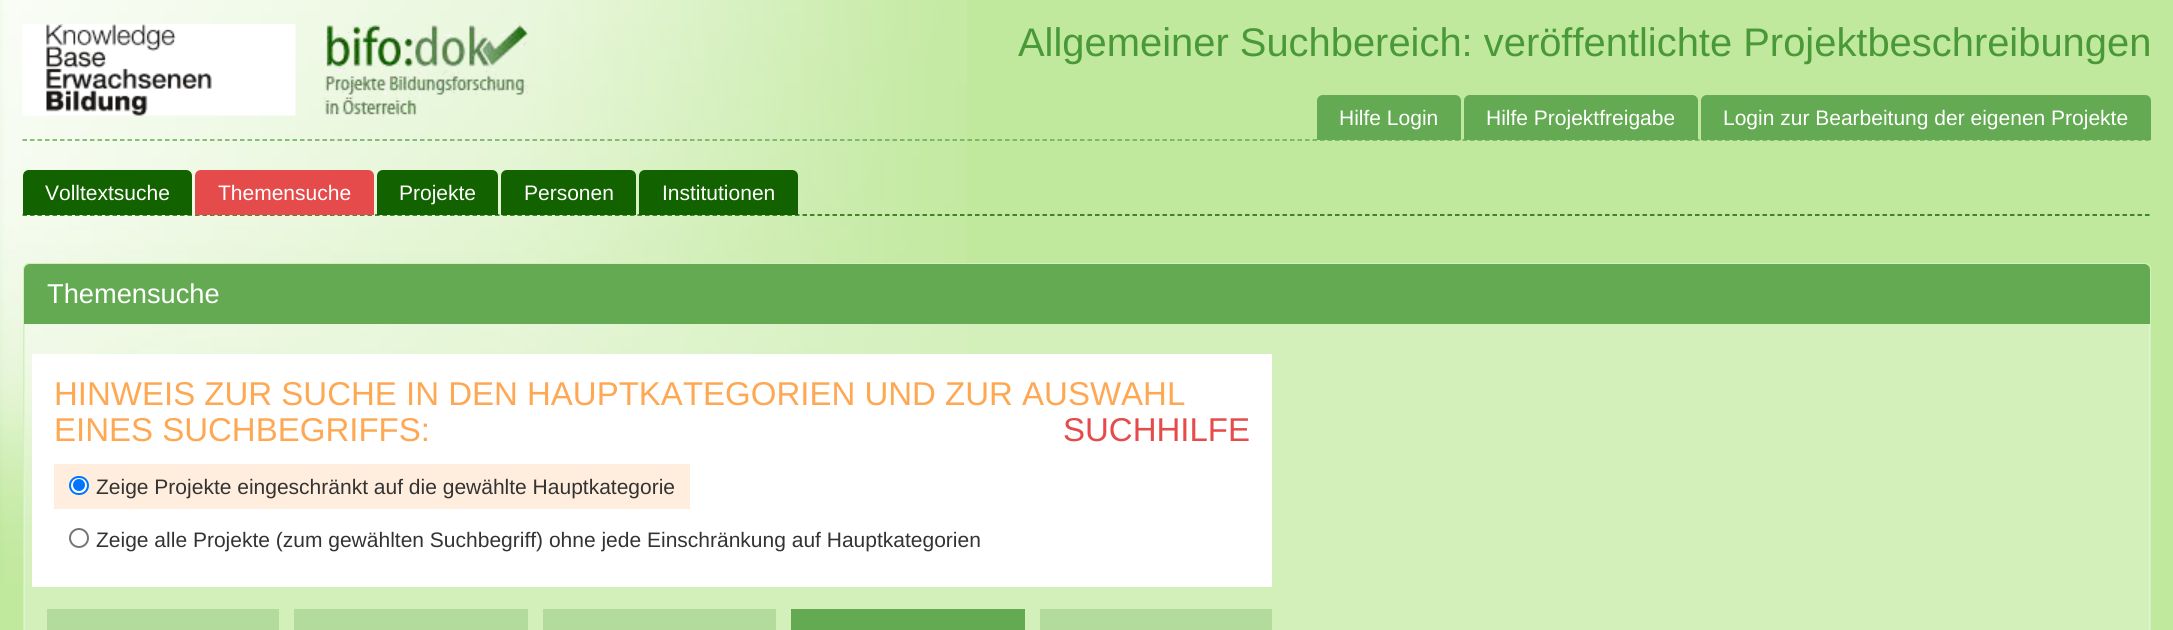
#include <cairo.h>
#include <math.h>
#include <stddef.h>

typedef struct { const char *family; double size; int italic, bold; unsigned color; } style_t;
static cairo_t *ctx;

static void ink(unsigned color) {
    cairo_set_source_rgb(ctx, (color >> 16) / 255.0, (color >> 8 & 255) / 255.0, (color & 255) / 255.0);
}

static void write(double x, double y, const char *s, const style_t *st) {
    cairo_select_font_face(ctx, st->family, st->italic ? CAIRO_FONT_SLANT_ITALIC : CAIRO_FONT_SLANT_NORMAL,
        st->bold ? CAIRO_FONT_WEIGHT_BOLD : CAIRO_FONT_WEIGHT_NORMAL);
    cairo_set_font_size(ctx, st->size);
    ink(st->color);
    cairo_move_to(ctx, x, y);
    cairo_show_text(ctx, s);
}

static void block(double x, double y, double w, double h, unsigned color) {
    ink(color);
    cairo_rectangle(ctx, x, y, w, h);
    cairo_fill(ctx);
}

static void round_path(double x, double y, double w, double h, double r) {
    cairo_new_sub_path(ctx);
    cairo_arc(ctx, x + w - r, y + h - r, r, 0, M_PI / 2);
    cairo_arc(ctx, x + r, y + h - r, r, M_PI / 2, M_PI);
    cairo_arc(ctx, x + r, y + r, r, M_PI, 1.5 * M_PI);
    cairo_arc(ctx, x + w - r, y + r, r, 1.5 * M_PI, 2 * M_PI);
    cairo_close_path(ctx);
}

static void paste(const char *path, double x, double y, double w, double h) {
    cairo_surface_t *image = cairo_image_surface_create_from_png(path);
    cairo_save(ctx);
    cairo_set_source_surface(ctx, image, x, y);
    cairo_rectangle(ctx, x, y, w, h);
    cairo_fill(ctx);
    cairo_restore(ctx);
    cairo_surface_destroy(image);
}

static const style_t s1 = {"Liberation Sans", 39.9, 0, 0, 0x4a9938};
static const style_t s2 = {"Liberation Sans", 21, 0, 0, 0xffffff};
static const style_t s3 = {"Liberation Sans", 27.25, 0, 0, 0xffffff};
static const style_t s4 = {"Liberation Sans", 33, 0, 0, 0xfea854};
static const style_t s5 = {"Liberation Sans", 33, 0, 0, 0xe54b4b};
static const style_t s6 = {"Liberation Sans", 21, 0, 0, 0x333333};

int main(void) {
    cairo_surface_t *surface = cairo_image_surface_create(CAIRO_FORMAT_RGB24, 2173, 630);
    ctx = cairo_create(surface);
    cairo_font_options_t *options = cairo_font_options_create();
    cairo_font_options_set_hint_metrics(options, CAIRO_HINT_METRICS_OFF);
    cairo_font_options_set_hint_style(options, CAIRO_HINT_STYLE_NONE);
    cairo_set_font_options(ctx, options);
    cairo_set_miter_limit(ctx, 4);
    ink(0xc1e99e);
    cairo_paint(ctx);
    paste("pic1.png", 0, 0, 967, 583);
    cairo_new_path(ctx);
    cairo_move_to(ctx, 22.5, 140);
    cairo_line_to(ctx, 2151, 140);
    ink(0x64aa53);
    cairo_set_line_width(ctx, 1.5);
    cairo_set_dash(ctx, (double[]){4.5, 3}, 2, 0);
    cairo_stroke(ctx);
    paste("pic2.png", 22, 24, 274, 92);
    paste("pic3.png", 324, 22, 204, 95);
    write(1018, 56, "Allgemeiner Suchbereich: veröffentlichte Projektbeschreibungen", &s1);
    cairo_new_path(ctx);
    cairo_move_to(ctx, 22.5, 215);
    cairo_line_to(ctx, 2151, 215);
    ink(0x126300);
    cairo_stroke(ctx);
    ink(0x64aa53);
    cairo_new_path(ctx);
    cairo_move_to(ctx, 1323, 95);
    cairo_line_to(ctx, 1455, 95);
    cairo_curve_to(ctx, 1458.5, 95, 1461, 97.5, 1461, 101);
    cairo_line_to(ctx, 1461, 140);
    cairo_line_to(ctx, 1317, 140);
    cairo_line_to(ctx, 1317, 101);
    cairo_curve_to(ctx, 1317, 97.5, 1319.5, 95, 1323, 95);
    cairo_close_path(ctx);
    cairo_fill(ctx);
    write(1339, 125, "Hilfe Login", &s2);
    ink(0x64aa53);
    cairo_new_path(ctx);
    cairo_move_to(ctx, 1470, 95);
    cairo_line_to(ctx, 1692, 95);
    cairo_curve_to(ctx, 1695.5, 95, 1698, 97.5, 1698, 101);
    cairo_line_to(ctx, 1698, 140);
    cairo_line_to(ctx, 1464, 140);
    cairo_line_to(ctx, 1464, 101);
    cairo_curve_to(ctx, 1464, 97.5, 1466.5, 95, 1470, 95);
    cairo_close_path(ctx);
    cairo_fill(ctx);
    write(1486, 125, "Hilfe Projektfreigabe", &s2);
    ink(0x64aa53);
    cairo_new_path(ctx);
    cairo_move_to(ctx, 1707, 95);
    cairo_line_to(ctx, 2145, 95);
    cairo_curve_to(ctx, 2148.5, 95, 2151, 97.5, 2151, 101);
    cairo_line_to(ctx, 2151, 140);
    cairo_line_to(ctx, 1701, 140);
    cairo_line_to(ctx, 1701, 101);
    cairo_curve_to(ctx, 1701, 97.5, 1703.5, 95, 1707, 95);
    cairo_close_path(ctx);
    cairo_fill(ctx);
    write(1723, 125, "Login zur Bearbeitung der eigenen Projekte", &s2);
    ink(0x126300);
    cairo_new_path(ctx);
    cairo_move_to(ctx, 29, 170);
    cairo_line_to(ctx, 186, 170);
    cairo_curve_to(ctx, 189.5, 170, 192, 172.5, 192, 176);
    cairo_line_to(ctx, 192, 215);
    cairo_line_to(ctx, 23, 215);
    cairo_line_to(ctx, 23, 176);
    cairo_curve_to(ctx, 23, 172.5, 25.5, 170, 29, 170);
    cairo_close_path(ctx);
    cairo_fill(ctx);
    write(45, 200, "Volltextsuche", &s2);
    ink(0xe54b4b);
    cairo_new_path(ctx);
    cairo_move_to(ctx, 201, 170);
    cairo_line_to(ctx, 368, 170);
    cairo_curve_to(ctx, 371.5, 170, 374, 172.5, 374, 176);
    cairo_line_to(ctx, 374, 215);
    cairo_line_to(ctx, 195, 215);
    cairo_line_to(ctx, 195, 176);
    cairo_curve_to(ctx, 195, 172.5, 197.5, 170, 201, 170);
    cairo_close_path(ctx);
    cairo_fill(ctx);
    write(218, 200, "Themensuche", &s2);
    ink(0x126300);
    cairo_new_path(ctx);
    cairo_move_to(ctx, 383, 170);
    cairo_line_to(ctx, 492, 170);
    cairo_curve_to(ctx, 495.5, 170, 498, 172.5, 498, 176);
    cairo_line_to(ctx, 498, 215);
    cairo_line_to(ctx, 377, 215);
    cairo_line_to(ctx, 377, 176);
    cairo_curve_to(ctx, 377, 172.5, 379.5, 170, 383, 170);
    cairo_close_path(ctx);
    cairo_fill(ctx);
    write(399, 200, "Projekte", &s2);
    ink(0x126300);
    cairo_new_path(ctx);
    cairo_move_to(ctx, 507, 170);
    cairo_line_to(ctx, 630, 170);
    cairo_curve_to(ctx, 633.5, 170, 636, 172.5, 636, 176);
    cairo_line_to(ctx, 636, 215);
    cairo_line_to(ctx, 501, 215);
    cairo_line_to(ctx, 501, 176);
    cairo_curve_to(ctx, 501, 172.5, 503.5, 170, 507, 170);
    cairo_close_path(ctx);
    cairo_fill(ctx);
    write(524, 200, "Personen", &s2);
    ink(0x126300);
    cairo_new_path(ctx);
    cairo_move_to(ctx, 645, 170);
    cairo_line_to(ctx, 792, 170);
    cairo_curve_to(ctx, 795.5, 170, 798, 172.5, 798, 176);
    cairo_line_to(ctx, 798, 215);
    cairo_line_to(ctx, 639, 215);
    cairo_line_to(ctx, 639, 176);
    cairo_curve_to(ctx, 639, 172.5, 641.5, 170, 645, 170);
    cairo_close_path(ctx);
    cairo_fill(ctx);
    write(662, 200, "Institutionen", &s2);
    round_path(24, 264, 2126, 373, 5);
    ink(0xd3f0bb);
    cairo_set_line_width(ctx, 2);
    cairo_set_dash(ctx, NULL, 0, 0);
    cairo_stroke(ctx);
    ink(0x64aa53);
    cairo_new_path(ctx);
    cairo_move_to(ctx, 30, 264);
    cairo_line_to(ctx, 2144, 264);
    cairo_curve_to(ctx, 2147.5, 264, 2150, 266.5, 2150, 270);
    cairo_line_to(ctx, 2150, 324);
    cairo_line_to(ctx, 24, 324);
    cairo_line_to(ctx, 24, 270);
    cairo_curve_to(ctx, 24, 266.5, 26.5, 264, 30, 264);
    cairo_close_path(ctx);
    cairo_fill(ctx);
    write(47, 303, "Themensuche", &s3);
    cairo_set_source_rgba(ctx, 1, 1, 1, 0.3);
    cairo_rectangle(ctx, 24, 324, 2126, 306);
    cairo_fill(ctx);
    block(32, 354, 1240, 233, 0xffffff);
    write(54, 405, "HINWEIS ZUR SUCHE IN DEN HAUPTKATEGORIEN UND ZUR AUSWAHL", &s4);
    write(54, 441, "EINES SUCHBEGRIFFS:", &s4);
    write(1063, 441, "SUCHHILFE", &s5);
    block(54, 464, 636, 45, 0xffeedd);
    ink(0xffffff);
    round_path(70, 477, 18, 17, 8.5);
    cairo_fill_preserve(ctx);
    ink(0x0075ff);
    cairo_stroke(ctx);
    cairo_arc(ctx, 79, 485, 6, 0, 2 * M_PI);
    cairo_fill(ctx);
    write(96, 494, "Zeige Projekte eingeschränkt auf die gewählte Hauptkategorie", &s6);
    cairo_new_path(ctx);
    cairo_arc(ctx, 79, 538, 9, 0, 2 * M_PI);
    ink(0x767676);
    cairo_stroke(ctx);
    write(96, 547, "Zeige alle Projekte (zum gewählten Suchbegriff) ohne jede Einschränkung auf Hauptkategorien", &s6);
    block(47, 609, 232, 21, 0xb2db9c);
    block(294, 609, 234, 21, 0xb2db9c);
    block(543, 609, 233, 21, 0xb2db9c);
    block(791, 609, 234, 21, 0x64aa53);
    block(1040, 609, 232, 21, 0xb2db9c);
    cairo_surface_write_to_png(surface, "screenshot.png");
    cairo_font_options_destroy(options);
    cairo_destroy(ctx);
    cairo_surface_destroy(surface);
    return 0;
}
